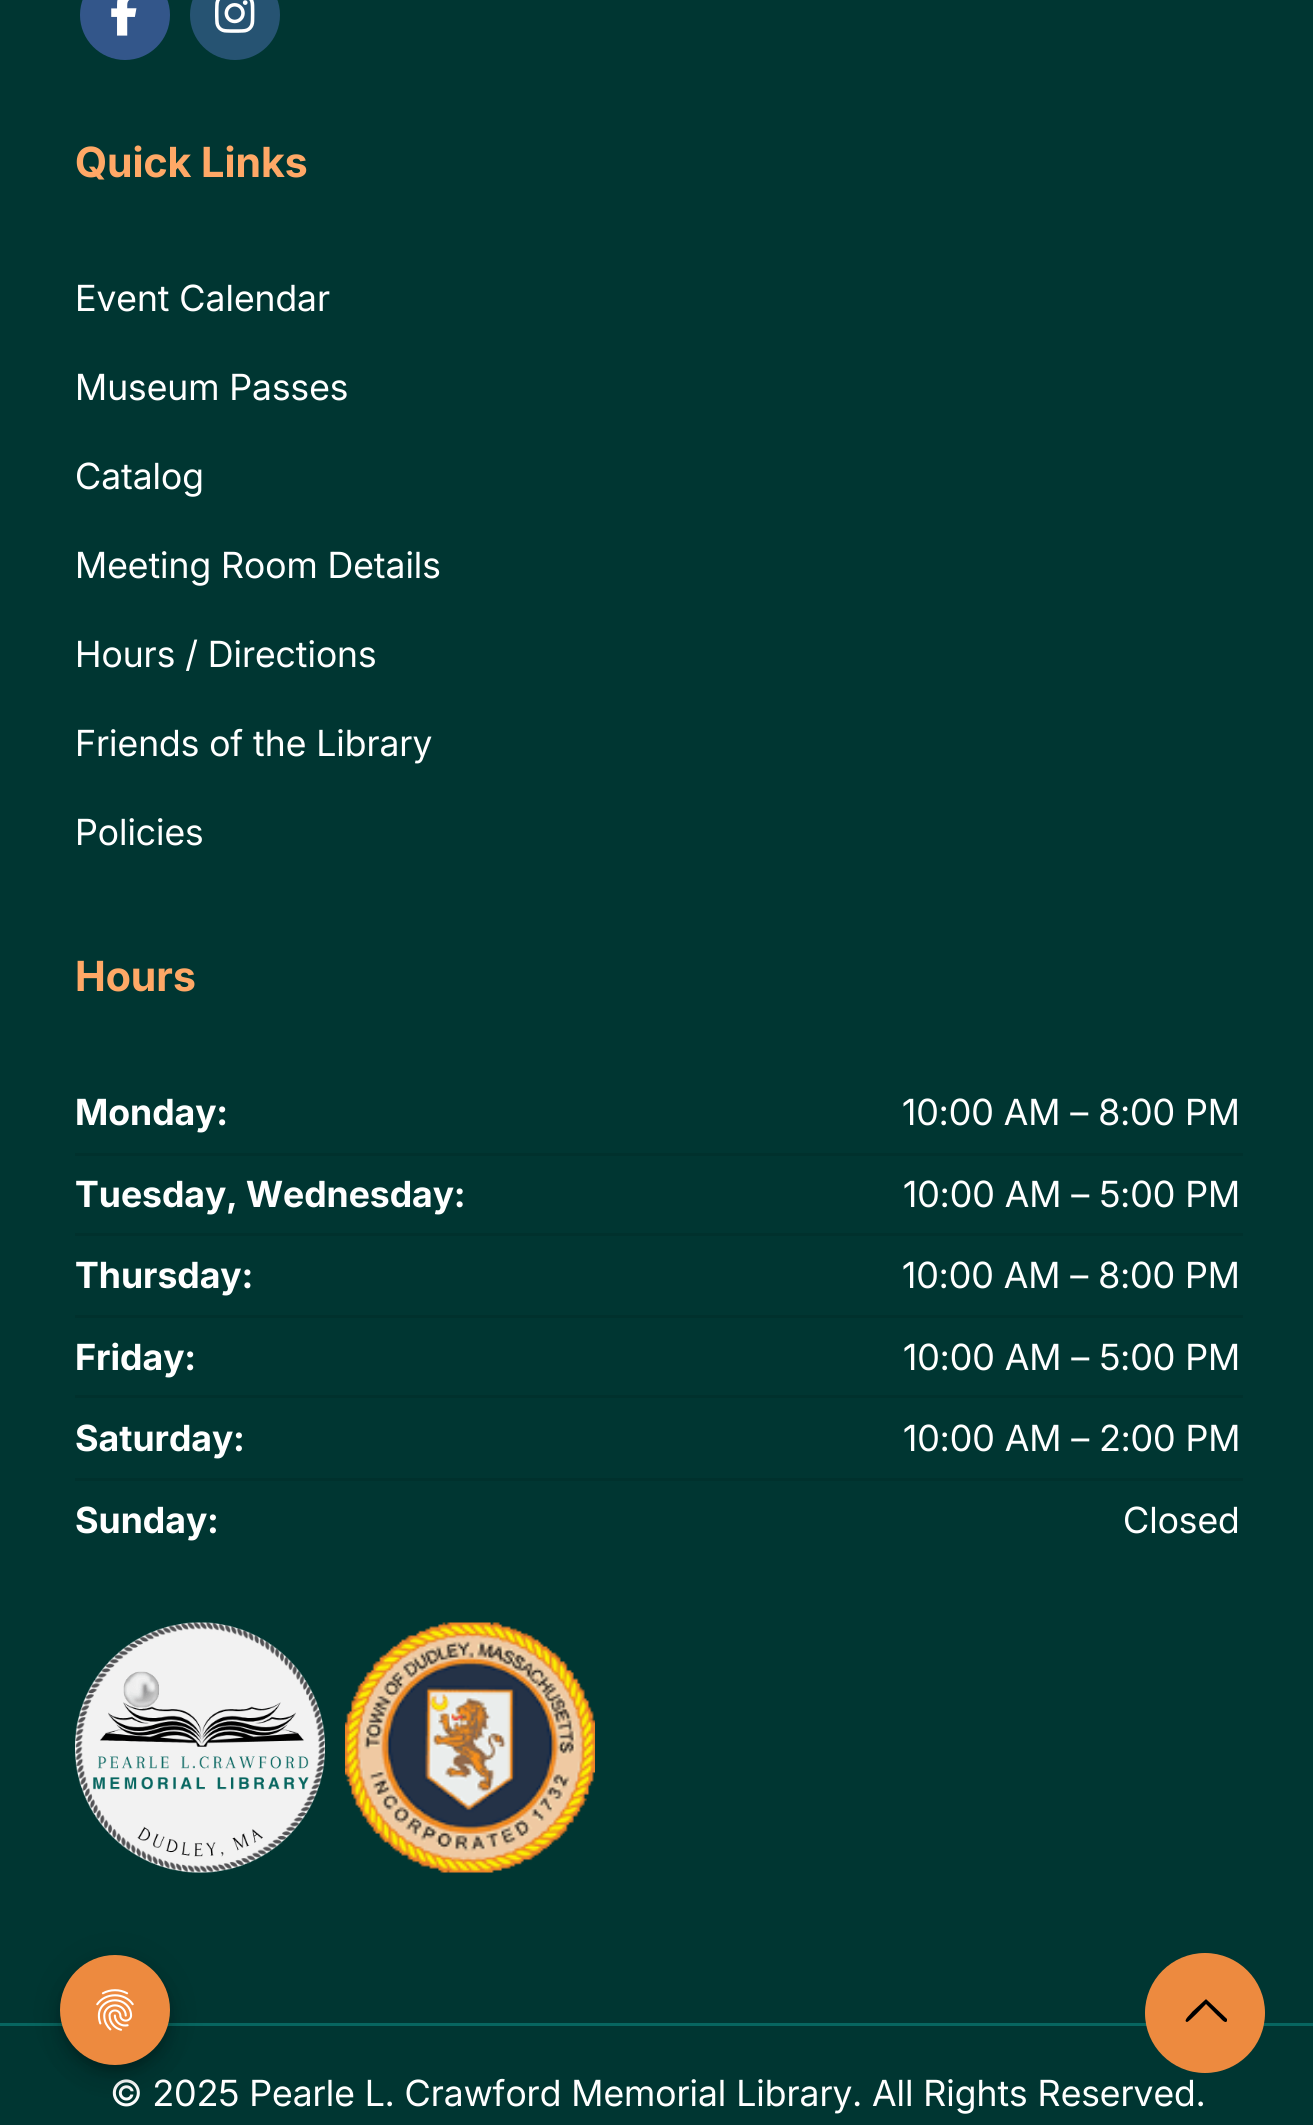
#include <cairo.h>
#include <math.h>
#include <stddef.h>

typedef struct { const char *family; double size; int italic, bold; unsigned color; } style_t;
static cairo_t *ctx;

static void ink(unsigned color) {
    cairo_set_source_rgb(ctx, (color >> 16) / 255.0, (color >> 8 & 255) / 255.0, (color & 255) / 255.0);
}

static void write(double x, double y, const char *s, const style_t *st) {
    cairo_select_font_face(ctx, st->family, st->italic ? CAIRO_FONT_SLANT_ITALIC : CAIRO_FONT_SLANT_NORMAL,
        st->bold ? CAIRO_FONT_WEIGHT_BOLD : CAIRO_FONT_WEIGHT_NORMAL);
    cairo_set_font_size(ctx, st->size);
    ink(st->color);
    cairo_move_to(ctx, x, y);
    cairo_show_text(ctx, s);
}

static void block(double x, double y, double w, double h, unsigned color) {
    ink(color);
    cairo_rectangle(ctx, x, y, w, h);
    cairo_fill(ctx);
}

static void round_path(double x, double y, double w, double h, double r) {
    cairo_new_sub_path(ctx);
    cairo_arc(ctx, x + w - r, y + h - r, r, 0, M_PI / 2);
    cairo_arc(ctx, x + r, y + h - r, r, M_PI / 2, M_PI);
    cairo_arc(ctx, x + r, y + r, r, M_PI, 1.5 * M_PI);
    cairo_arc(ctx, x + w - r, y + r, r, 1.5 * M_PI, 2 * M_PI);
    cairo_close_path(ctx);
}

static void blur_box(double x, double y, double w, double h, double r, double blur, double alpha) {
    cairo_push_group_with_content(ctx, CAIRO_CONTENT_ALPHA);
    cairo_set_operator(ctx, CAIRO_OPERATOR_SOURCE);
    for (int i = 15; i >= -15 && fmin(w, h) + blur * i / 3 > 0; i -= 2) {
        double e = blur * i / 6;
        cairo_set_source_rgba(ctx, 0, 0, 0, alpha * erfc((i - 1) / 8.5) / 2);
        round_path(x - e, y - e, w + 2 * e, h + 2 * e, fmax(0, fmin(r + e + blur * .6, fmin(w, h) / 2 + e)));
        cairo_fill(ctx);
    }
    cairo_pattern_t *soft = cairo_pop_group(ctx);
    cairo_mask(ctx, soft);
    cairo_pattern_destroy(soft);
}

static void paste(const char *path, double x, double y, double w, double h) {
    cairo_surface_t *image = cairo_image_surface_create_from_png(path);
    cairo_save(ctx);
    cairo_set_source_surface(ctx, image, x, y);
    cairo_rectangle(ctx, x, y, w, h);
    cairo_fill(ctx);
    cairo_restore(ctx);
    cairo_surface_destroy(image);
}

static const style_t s1 = {"Inter", 41.5, 0, 1, 0xffa866};
static const style_t s2 = {"Inter", 36, 0, 0, 0xffffff};
static const style_t s3 = {"Inter", 36, 0, 1, 0xffffff};

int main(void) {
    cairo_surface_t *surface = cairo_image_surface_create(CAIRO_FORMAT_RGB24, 1313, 2125);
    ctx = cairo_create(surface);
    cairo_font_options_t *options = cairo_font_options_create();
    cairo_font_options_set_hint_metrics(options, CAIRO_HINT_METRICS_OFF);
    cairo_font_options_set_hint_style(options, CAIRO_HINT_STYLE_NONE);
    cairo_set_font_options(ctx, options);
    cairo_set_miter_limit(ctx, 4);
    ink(0x003632);
    cairo_paint(ctx);
    ink(0x33568a);
    cairo_arc(ctx, 125, 15, 45, 0, 2 * M_PI);
    cairo_fill(ctx);
    paste("pic1.png", 111, 0, 26, 36);
    ink(0x265372);
    cairo_arc(ctx, 235, 15, 45, 0, 2 * M_PI);
    cairo_fill(ctx);
    paste("pic2.png", 215, 0, 40, 33);
    write(75, 177, "Quick Links", &s1);
    write(75, 311, "Event Calendar", &s2);
    write(75, 400, "Museum Passes", &s2);
    write(75, 489, "Catalog", &s2);
    write(75, 578, "Meeting Room Details", &s2);
    write(75, 667, "Hours / Directions", &s2);
    write(75, 756, "Friends of the Library", &s2);
    write(75, 845, "Policies", &s2);
    write(75, 991, "Hours", &s1);
    block(75, 1153, 1168, 3, 0x00312d);
    write(75, 1125, "Monday:", &s3);
    write(902, 1125, "10:00 AM – 8:00 PM", &s2);
    block(75, 1233, 1168, 3, 0x00312d);
    write(75, 1207, "Tuesday, Wednesday:", &s3);
    write(903, 1207, "10:00 AM – 5:00 PM", &s2);
    block(75, 1315, 1168, 3, 0x00312d);
    write(75, 1288, "Thursday:", &s3);
    write(902, 1288, "10:00 AM – 8:00 PM", &s2);
    block(75, 1395, 1168, 3, 0x00312d);
    write(75, 1370, "Friday:", &s3);
    write(903, 1370, "10:00 AM – 5:00 PM", &s2);
    block(75, 1478, 1168, 3, 0x00312d);
    write(75, 1451, "Saturday:", &s3);
    write(903, 1451, "10:00 AM – 2:00 PM", &s2);
    write(75, 1533, "Sunday:", &s3);
    write(1123, 1533, "Closed", &s2);
    paste("pic3.png", 75, 1622, 250, 251);
    paste("pic4.png", 345, 1622, 250, 251);
    block(0, 2023, 1313, 3, 0x076660);
    ink(0xed8a3f);
    cairo_arc(ctx, 1205, 2013, 60, 0, 2 * M_PI);
    cairo_fill(ctx);
    ink(0x000000);
    cairo_new_path(ctx);
    cairo_move_to(ctx, 1205, 2000);
    cairo_curve_to(ctx, 1206, 1999, 1206, 1999, 1207, 2000);
    cairo_line_to(ctx, 1227, 2019);
    cairo_line_to(ctx, 1227, 2021);
    cairo_curve_to(ctx, 1225, 2025, 1219, 2016, 1218, 2016);
    cairo_line_to(ctx, 1206, 2004);
    cairo_curve_to(ctx, 1204, 2006, 1189, 2022, 1187, 2022);
    cairo_curve_to(ctx, 1182, 2021, 1192, 2013, 1192, 2012);
    cairo_close_path(ctx);
    cairo_fill(ctx);
    write(110, 2106, "© 2025 Pearle L. Crawford Memorial Library.", &s2);
    write(872, 2106, "All Rights Reserved.", &s2);
    ink(0x000000);
    blur_box(60, 1958, 110, 110, 55, 22.5, 0.12);
    blur_box(60, 1970, 110, 110, 55, 12.5, 0.14);
    blur_box(63, 1965, 105, 105, 52.5, 6, 0.2);
    ink(0xed8a3f);
    cairo_arc(ctx, 115, 2010, 55, 0, 2 * M_PI);
    cairo_fill(ctx);
    paste("pic5.png", 96, 1989, 38, 42);
    cairo_surface_write_to_png(surface, "screenshot.png");
    cairo_font_options_destroy(options);
    cairo_destroy(ctx);
    cairo_surface_destroy(surface);
    return 0;
}
